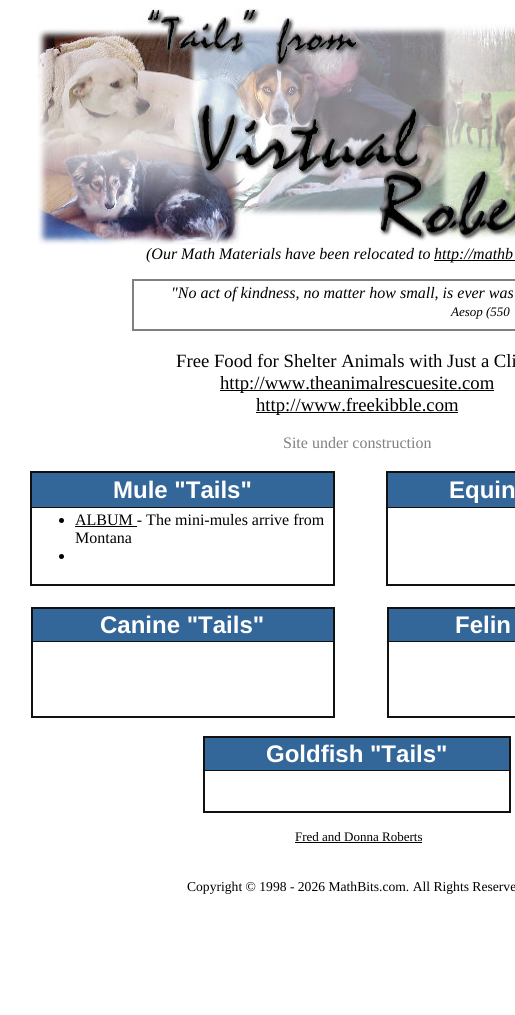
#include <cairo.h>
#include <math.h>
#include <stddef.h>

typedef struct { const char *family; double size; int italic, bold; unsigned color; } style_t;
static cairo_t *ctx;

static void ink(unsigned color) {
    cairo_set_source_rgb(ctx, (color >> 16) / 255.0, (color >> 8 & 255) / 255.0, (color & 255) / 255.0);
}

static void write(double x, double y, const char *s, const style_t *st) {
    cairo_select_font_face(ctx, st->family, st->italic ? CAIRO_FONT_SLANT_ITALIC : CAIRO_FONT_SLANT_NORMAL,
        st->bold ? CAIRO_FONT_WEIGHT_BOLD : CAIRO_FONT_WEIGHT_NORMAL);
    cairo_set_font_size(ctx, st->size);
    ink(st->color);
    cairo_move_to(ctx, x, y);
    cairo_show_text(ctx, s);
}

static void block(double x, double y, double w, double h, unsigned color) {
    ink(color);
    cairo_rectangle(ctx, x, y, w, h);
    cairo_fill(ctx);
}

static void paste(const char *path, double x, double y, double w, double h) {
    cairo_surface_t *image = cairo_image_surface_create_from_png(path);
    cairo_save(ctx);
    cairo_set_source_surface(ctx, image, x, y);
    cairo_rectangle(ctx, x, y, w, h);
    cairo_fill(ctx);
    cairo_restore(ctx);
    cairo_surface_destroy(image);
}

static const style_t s1 = {"Liberation Serif", 16, 1, 0, 0x000000};
static const style_t s2 = {"Liberation Serif", 13, 1, 0, 0x000000};
static const style_t s3 = {"Liberation Serif", 18.7, 0, 0, 0x000000};
static const style_t s4 = {"Liberation Serif", 16, 0, 0, 0x808080};
static const style_t s5 = {"Liberation Sans", 24, 0, 1, 0xffffff};
static const style_t s6 = {"Liberation Serif", 16, 0, 0, 0x000000};
static const style_t s7 = {"Liberation Serif", 13, 0, 0, 0x000000};
static const style_t s8 = {"Liberation Serif", 13.6, 0, 0, 0x000000};

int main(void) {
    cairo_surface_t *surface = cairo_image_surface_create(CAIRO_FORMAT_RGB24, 515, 1015);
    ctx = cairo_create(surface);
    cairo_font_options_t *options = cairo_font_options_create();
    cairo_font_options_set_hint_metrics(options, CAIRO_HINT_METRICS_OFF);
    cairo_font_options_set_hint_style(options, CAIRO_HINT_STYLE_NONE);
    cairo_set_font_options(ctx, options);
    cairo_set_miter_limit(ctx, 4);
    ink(0xffffff);
    cairo_paint(ctx);
    paste("pic1.png", 37, 8, 478, 237);
    write(146, 259, "(Our Math Materials have been relocated to", &s1);
    block(434, 260, 81, 1, 0x000000);
    write(434, 259, "http://mathb", &s1);
    block(132, 279, 383, 2, 0x808080);
    block(132, 329, 383, 2, 0x808080);
    block(132, 279, 2, 52, 0x808080);
    write(171, 298, "\"No act of kindness, no matter how small, is ever was", &s1);
    write(451, 316, "Aesop (550", &s2);
    write(176, 367, "Free Food for Shelter Animals with Just a Cli", &s3);
    block(220, 390, 274, 1, 0x000000);
    write(220, 389, "http://www.theanimalrescuesite.com", &s3);
    block(256, 412, 202, 1, 0x000000);
    write(256, 411, "http://www.freekibble.com", &s3);
    write(283, 448, "Site under construction", &s4);
    block(30, 471, 305, 2, 0x111111);
    block(30, 507, 305, 1, 0x111111);
    block(333, 471, 2, 115, 0x111111);
    block(30, 584, 305, 2, 0x111111);
    block(30, 471, 2, 115, 0x111111);
    block(32, 473, 301, 34, 0x336699);
    write(113, 498, "Mule \"Tails\"", &s5);
    ink(0x000000);
    cairo_new_path(ctx);
    cairo_arc(ctx, 61.5, 520.5, 2.5, 0, 2 * M_PI);
    cairo_fill(ctx);
    write(75, 525, "ALBUM - The mini-mules arrive from", &s6);
    block(75, 526, 62, 1, 0x000000);
    write(75, 543, "Montana", &s6);
    cairo_new_path(ctx);
    cairo_arc(ctx, 61.5, 556.5, 2.5, 0, 2 * M_PI);
    cairo_fill(ctx);
    block(386, 471, 129, 2, 0x111111);
    block(386, 584, 129, 2, 0x111111);
    block(386, 507, 129, 1, 0x111111);
    block(386, 471, 2, 115, 0x111111);
    block(388, 473, 127, 34, 0x336699);
    write(449, 498, "Equin", &s5);
    block(31, 607, 304, 2, 0x111111);
    block(31, 641, 303, 1, 0x111111);
    block(333, 607, 2, 111, 0x111111);
    block(31, 716, 304, 2, 0x111111);
    block(31, 607, 2, 111, 0x111111);
    block(33, 609, 300, 32, 0x336699);
    write(100, 633, "Canine \"Tails\"", &s5);
    block(387, 607, 128, 2, 0x111111);
    block(387, 716, 128, 2, 0x111111);
    block(388, 641, 127, 1, 0x111111);
    block(387, 607, 2, 111, 0x111111);
    block(389, 609, 126, 32, 0x336699);
    write(455, 633, "Felin", &s5);
    block(203, 736, 308, 2, 0x111111);
    block(204, 770, 307, 1, 0x111111);
    block(509, 736, 2, 77, 0x111111);
    block(203, 811, 308, 2, 0x111111);
    block(203, 736, 2, 77, 0x111111);
    block(205, 738, 304, 32, 0x336699);
    write(266, 762, "Goldfish \"Tails\"", &s5);
    write(295, 841, "Fred and Donna Roberts", &s7);
    block(295, 842, 127, 1, 0x000000);
    write(187, 891, "Copyright © 1998 - 2026 MathBits.com. All Rights Reserve", &s8);
    cairo_surface_write_to_png(surface, "screenshot.png");
    cairo_font_options_destroy(options);
    cairo_destroy(ctx);
    cairo_surface_destroy(surface);
    return 0;
}
